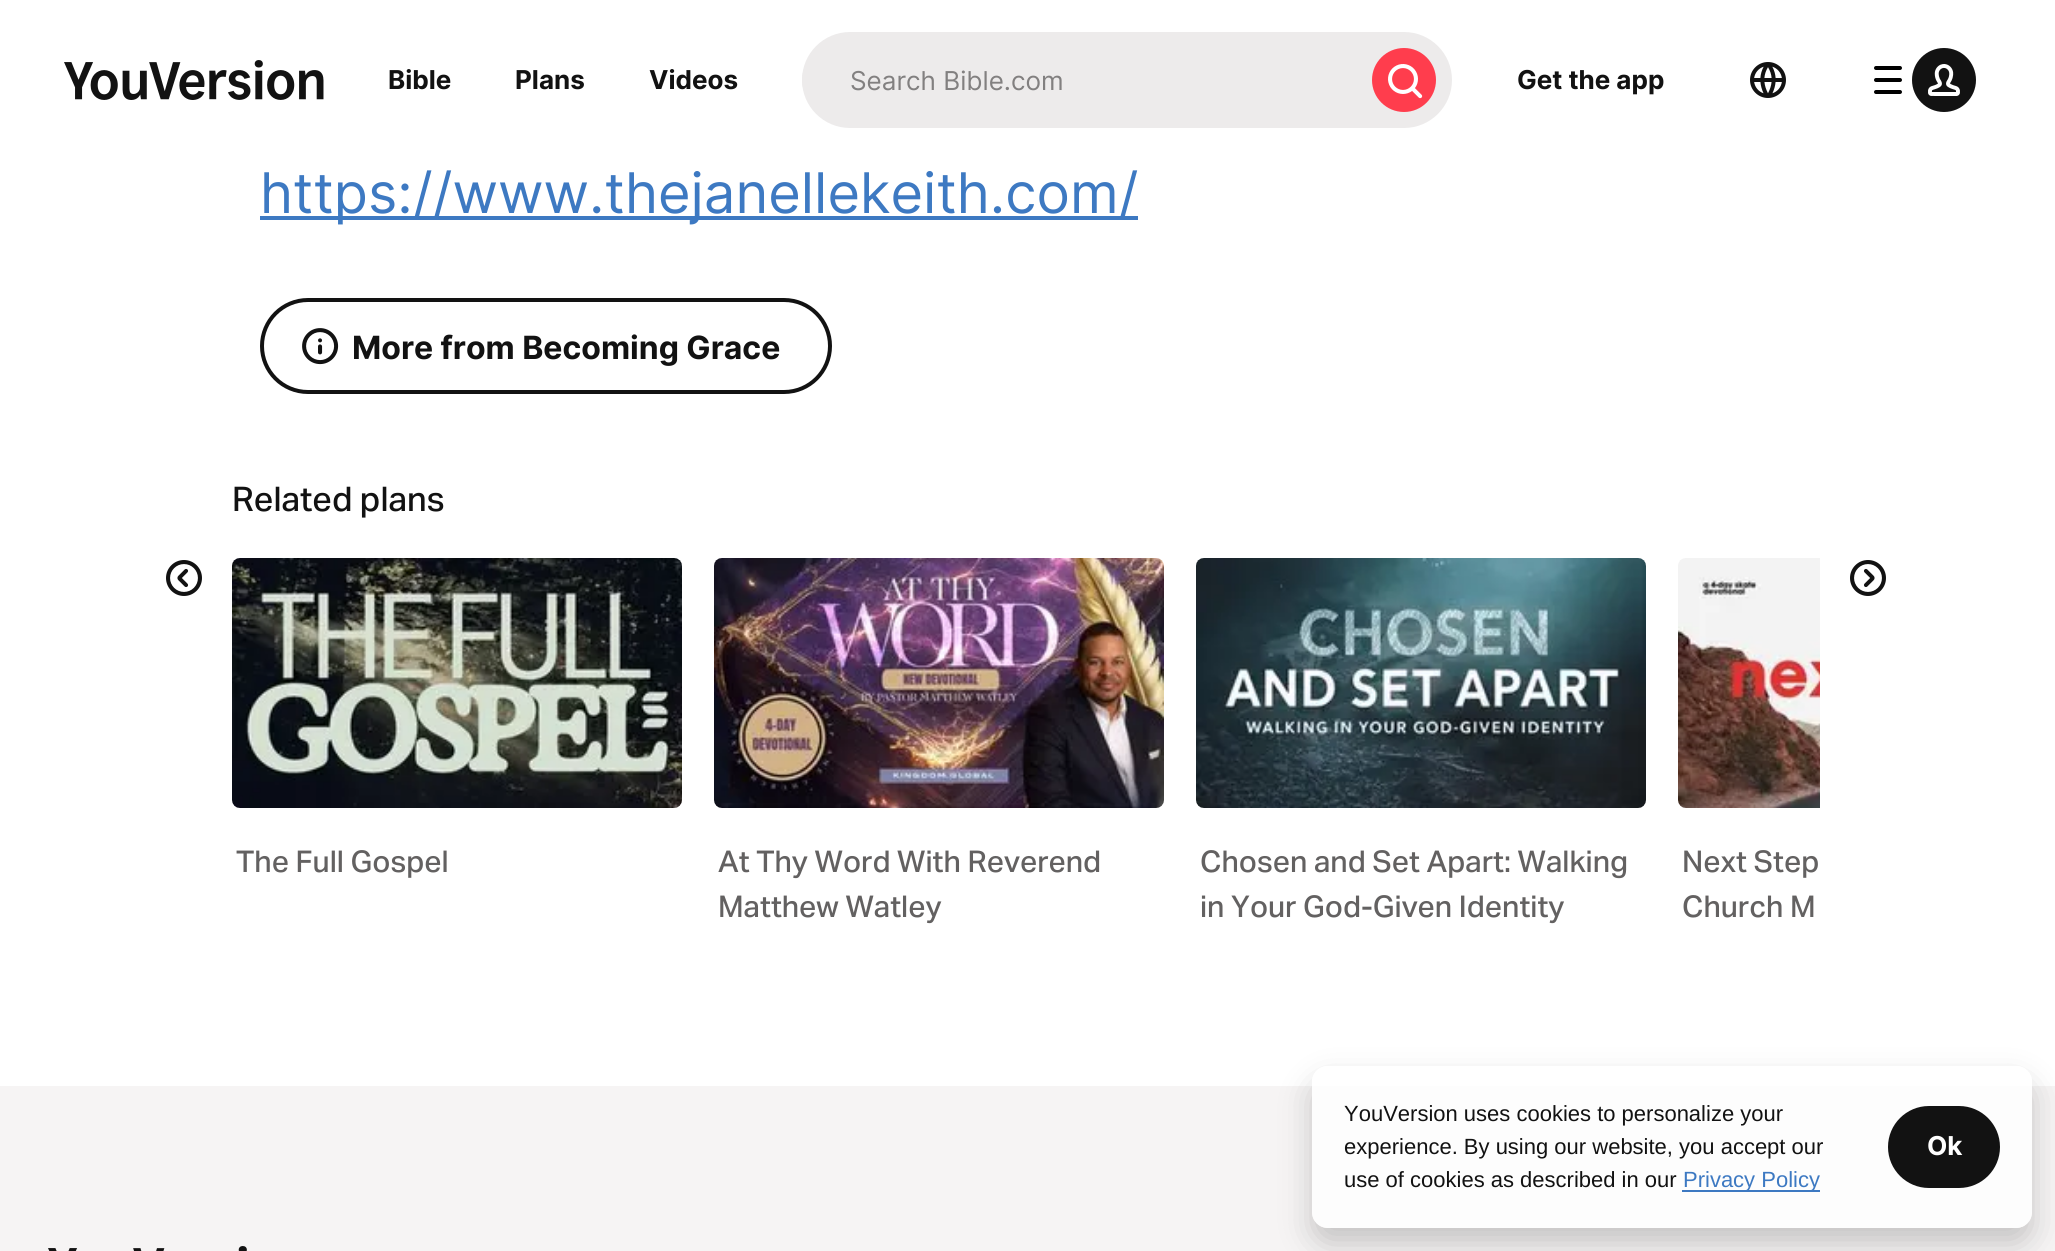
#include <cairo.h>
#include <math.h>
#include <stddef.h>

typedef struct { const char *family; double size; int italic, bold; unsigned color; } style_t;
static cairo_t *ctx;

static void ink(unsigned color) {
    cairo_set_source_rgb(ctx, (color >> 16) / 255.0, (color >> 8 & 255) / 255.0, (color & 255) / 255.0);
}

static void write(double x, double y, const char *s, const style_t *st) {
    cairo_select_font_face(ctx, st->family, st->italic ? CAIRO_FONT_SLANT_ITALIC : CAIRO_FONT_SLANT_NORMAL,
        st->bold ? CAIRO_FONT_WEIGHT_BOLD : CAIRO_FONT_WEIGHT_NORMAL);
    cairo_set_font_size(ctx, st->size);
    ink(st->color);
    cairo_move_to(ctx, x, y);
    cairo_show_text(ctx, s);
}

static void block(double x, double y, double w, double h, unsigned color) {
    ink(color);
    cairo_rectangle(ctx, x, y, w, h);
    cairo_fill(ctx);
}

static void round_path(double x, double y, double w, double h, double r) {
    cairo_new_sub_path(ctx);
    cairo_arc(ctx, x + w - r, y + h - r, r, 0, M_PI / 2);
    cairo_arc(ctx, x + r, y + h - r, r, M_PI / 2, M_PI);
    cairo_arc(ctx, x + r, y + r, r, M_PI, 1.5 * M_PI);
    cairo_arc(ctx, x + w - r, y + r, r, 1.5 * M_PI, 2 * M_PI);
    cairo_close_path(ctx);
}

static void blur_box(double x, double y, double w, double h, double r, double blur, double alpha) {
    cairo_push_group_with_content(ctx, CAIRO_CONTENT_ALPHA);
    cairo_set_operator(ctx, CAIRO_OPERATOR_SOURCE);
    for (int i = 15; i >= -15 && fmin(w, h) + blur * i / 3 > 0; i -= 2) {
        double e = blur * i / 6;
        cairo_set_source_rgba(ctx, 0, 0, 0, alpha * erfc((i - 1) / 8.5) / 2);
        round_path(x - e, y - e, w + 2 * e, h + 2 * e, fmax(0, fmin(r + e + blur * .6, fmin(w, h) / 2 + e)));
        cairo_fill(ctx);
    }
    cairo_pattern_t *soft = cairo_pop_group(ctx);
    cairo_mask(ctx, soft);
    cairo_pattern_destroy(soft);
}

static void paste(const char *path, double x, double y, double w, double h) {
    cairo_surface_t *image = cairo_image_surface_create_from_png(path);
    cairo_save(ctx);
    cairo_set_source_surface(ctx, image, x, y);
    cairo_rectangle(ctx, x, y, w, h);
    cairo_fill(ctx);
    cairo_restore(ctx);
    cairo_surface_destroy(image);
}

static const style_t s1 = {"Inter", 26, 0, 1, 0x121212};
static const style_t s2 = {"Inter", 26, 0, 0, 0x828080};
static const style_t s3 = {"Inter", 56, 0, 0, 0x3d79c2};
static const style_t s4 = {"Inter", 32, 0, 1, 0x121212};
static const style_t s5 = {"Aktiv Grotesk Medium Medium", 34, 0, 0, 0x121212};
static const style_t s6 = {"Aktiv Grotesk Medium Medium", 30, 0, 0, 0x636161};
static const style_t s7 = {"Liberation Sans", 22, 0, 0, 0x121212};
static const style_t s8 = {"Liberation Sans", 22, 0, 0, 0x3d79c2};
static const style_t s9 = {"Inter", 26, 0, 1, 0xffffff};

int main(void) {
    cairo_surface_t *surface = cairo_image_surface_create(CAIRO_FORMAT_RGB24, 2055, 1251);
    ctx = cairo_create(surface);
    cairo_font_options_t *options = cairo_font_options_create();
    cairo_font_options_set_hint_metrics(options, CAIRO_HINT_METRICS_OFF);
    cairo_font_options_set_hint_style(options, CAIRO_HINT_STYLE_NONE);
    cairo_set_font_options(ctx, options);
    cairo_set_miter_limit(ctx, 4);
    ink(0xffffff);
    cairo_paint(ctx);
    paste("pic1.png", 64, 60, 260, 40);
    write(388, 89, "Bible", &s1);
    write(515, 89, "Plans", &s1);
    write(649, 89, "Videos", &s1);
    ink(0xedebeb);
    round_path(802, 32, 650, 96, 48);
    cairo_fill(ctx);
    round_path(802, 48, 554, 64, 32);
    cairo_fill(ctx);
    write(850, 90, "Search Bible.com", &s2);
    ink(0xff3d4d);
    cairo_new_path(ctx);
    cairo_arc(ctx, 1404, 80, 32, 0, 2 * M_PI);
    cairo_fill(ctx);
    paste("pic2.png", 1388, 64, 35, 35);
    write(1517, 89, "Get the app", &s1);
    paste("pic3.png", 1750, 62, 36, 36);
    paste("pic4.png", 1874, 66, 28, 28);
    cairo_arc(ctx, 1944, 80, 32, 0, 2 * M_PI);
    cairo_fill(ctx);
    paste("pic5.png", 1928, 64, 32, 32);
    block(260, 216, 878, 4, 0x3d79c2);
    write(260, 213, "https://www.thejanellekeith.com/", &s3);
    round_path(262, 300, 568, 92, 46);
    ink(0x121212);
    cairo_set_line_width(ctx, 4);
    cairo_stroke(ctx);
    paste("pic6.png", 302, 328, 37, 37);
    write(352, 359, "More from Becoming Grace", &s4);
    paste("pic7.png", 166, 560, 36, 36);
    write(232, 511, "Related plans", &s5);
    paste("pic8.png", 232, 558, 450, 250);
    write(236, 872, "The Full Gospel", &s6);
    paste("pic9.png", 714, 558, 450, 250);
    write(718, 872, "At Thy Word With Reverend", &s6);
    write(718, 917, "Matthew Watley", &s6);
    paste("pic10.png", 1196, 558, 450, 250);
    write(1200, 872, "Chosen and Set Apart: Walking", &s6);
    write(1200, 917, "in Your God-Given Identity", &s6);
    paste("pic11.png", 1678, 558, 142, 250);
    write(1682, 872, "Next Step", &s6);
    write(1682, 917, "Church M", &s6);
    paste("pic12.png", 1850, 560, 36, 36);
    block(0, 1086, 2055, 165, 0xf6f4f4);
    paste("pic13.png", 48, 1246, 199, 5);
    cairo_save(ctx);
    cairo_set_fill_rule(ctx, CAIRO_FILL_RULE_EVEN_ODD);
    cairo_new_path(ctx);
    cairo_move_to(ctx, 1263, 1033);
    cairo_line_to(ctx, 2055, 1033);
    cairo_line_to(ctx, 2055, 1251);
    cairo_line_to(ctx, 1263, 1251);
    cairo_close_path(ctx);
    cairo_move_to(ctx, 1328, 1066);
    cairo_line_to(ctx, 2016, 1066);
    cairo_curve_to(ctx, 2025, 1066, 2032, 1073, 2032, 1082);
    cairo_line_to(ctx, 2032, 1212);
    cairo_curve_to(ctx, 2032, 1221, 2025, 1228, 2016, 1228);
    cairo_line_to(ctx, 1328, 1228);
    cairo_curve_to(ctx, 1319, 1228, 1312, 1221, 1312, 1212);
    cairo_line_to(ctx, 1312, 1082);
    cairo_curve_to(ctx, 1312, 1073, 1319, 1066, 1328, 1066);
    cairo_close_path(ctx);
    cairo_clip(ctx);
    ink(0x000000);
    blur_box(1312, 1082, 720, 162, 16, 16, 0.2);
    cairo_restore(ctx);
    cairo_set_source_rgba(ctx, 1, 1, 1, 0.8);
    round_path(1312, 1066, 720, 162, 16);
    cairo_fill(ctx);
    write(1344, 1121, "YouVersion uses cookies to personalize your", &s7);
    write(1344, 1154, "experience. By using our website, you accept our", &s7);
    write(1344, 1187, "use of cookies as described in our", &s7);
    block(1682, 1190, 138, 2, 0x3d79c2);
    write(1683, 1187, "Privacy Policy", &s8);
    ink(0x121212);
    round_path(1888, 1106, 112, 82, 41);
    cairo_fill(ctx);
    write(1927, 1155, "Ok", &s9);
    cairo_surface_write_to_png(surface, "screenshot.png");
    cairo_font_options_destroy(options);
    cairo_destroy(ctx);
    cairo_surface_destroy(surface);
    return 0;
}
